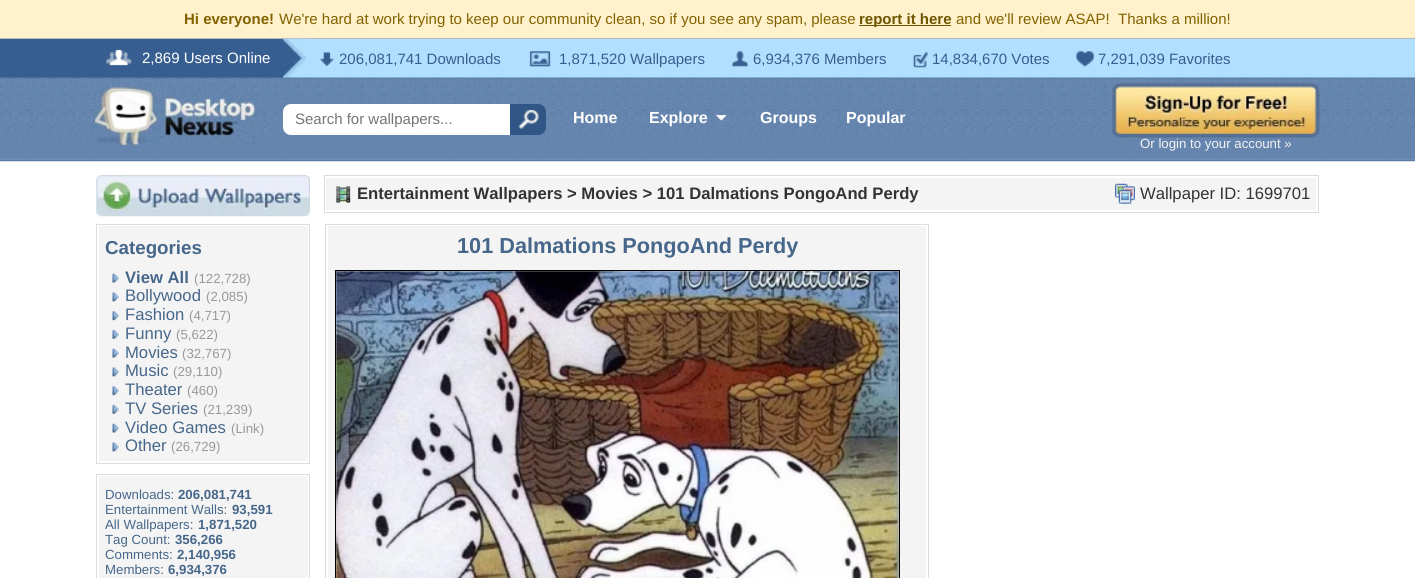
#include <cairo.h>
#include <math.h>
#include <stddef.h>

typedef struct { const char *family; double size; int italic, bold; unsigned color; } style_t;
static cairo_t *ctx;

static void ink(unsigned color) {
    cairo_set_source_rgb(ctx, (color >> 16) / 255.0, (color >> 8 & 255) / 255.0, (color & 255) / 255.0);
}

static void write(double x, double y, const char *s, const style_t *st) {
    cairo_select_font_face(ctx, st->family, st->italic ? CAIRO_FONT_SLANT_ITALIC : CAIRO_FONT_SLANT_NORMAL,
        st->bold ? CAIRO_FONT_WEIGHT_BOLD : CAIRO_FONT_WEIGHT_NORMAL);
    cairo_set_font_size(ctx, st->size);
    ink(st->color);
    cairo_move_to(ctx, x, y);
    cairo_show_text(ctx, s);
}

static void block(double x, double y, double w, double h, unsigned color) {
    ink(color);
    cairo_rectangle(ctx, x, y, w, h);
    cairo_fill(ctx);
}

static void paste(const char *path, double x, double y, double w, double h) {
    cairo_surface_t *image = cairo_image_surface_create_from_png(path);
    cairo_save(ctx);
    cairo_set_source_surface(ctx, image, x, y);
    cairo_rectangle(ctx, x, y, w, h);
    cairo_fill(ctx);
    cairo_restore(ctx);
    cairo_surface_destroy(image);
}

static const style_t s1 = {"Liberation Sans", 15, 0, 1, 0x826200};
static const style_t s2 = {"Liberation Sans", 15, 0, 0, 0x826200};
static const style_t s3 = {"Liberation Sans", 15, 0, 1, 0x705500};
static const style_t s4 = {"Liberation Sans", 15, 0, 0, 0xffffff};
static const style_t s5 = {"Liberation Sans", 15, 0, 0, 0x375e90};
static const style_t s6 = {"Liberation Sans", 15, 0, 0, 0x757575};
static const style_t s7 = {"Liberation Sans", 16, 0, 1, 0xffffff};
static const style_t s8 = {"Liberation Sans", 13.25, 0, 0, 0xf4f4f4};
static const style_t s9 = {"Liberation Sans", 16.65, 0, 1, 0x333333};
static const style_t s10 = {"Liberation Sans", 16.65, 0, 0, 0x333333};
static const style_t s11 = {"Liberation Sans", 21.7, 0, 1, 0x46678a};
static const style_t s12 = {"Liberation Sans", 18.75, 0, 1, 0x46678a};
static const style_t s13 = {"Liberation Sans", 16.65, 0, 1, 0x46678a};
static const style_t s14 = {"Liberation Sans", 13.25, 0, 0, 0x999999};
static const style_t s15 = {"Liberation Sans", 16.65, 0, 0, 0x46678a};
static const style_t s16 = {"Liberation Sans", 13.25, 0, 0, 0x46678a};
static const style_t s17 = {"Liberation Sans", 13.25, 0, 1, 0x46678a};

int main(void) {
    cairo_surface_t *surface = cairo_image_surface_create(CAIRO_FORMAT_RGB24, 1415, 578);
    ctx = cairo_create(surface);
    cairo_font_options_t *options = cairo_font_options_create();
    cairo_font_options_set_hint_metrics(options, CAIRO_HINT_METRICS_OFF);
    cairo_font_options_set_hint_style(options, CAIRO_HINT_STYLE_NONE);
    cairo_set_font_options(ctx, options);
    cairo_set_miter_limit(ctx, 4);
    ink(0xffffff);
    cairo_paint(ctx);
    block(0, 0, 1415, 38, 0xfff1cb);
    write(184, 24, "Hi everyone!", &s1);
    write(279, 24, "We're hard at work trying to keep our community clean, so if you see any spam, please", &s2);
    block(859, 25, 92, 1, 0x705500);
    write(859, 24, "report it here", &s3);
    write(956, 24, "and we'll review ASAP!  Thanks a million!", &s2);
    block(283, 39, 1132, 39, 0xb1dfff);
    block(0, 38, 1415, 1, 0xb6bac0);
    paste("pic2.png", 282, 38, 25, 40);
    block(0, 39, 283, 39, 0x375e90);
    paste("pic1.png", 106, 50, 26, 16);
    write(142, 63, "2,869 Users Online", &s4);
    paste("pic3.png", 320, 52, 14, 15);
    write(339, 64, "206,081,741 Downloads", &s5);
    paste("pic4.png", 529, 51, 22, 16);
    write(559, 64, "1,871,520 Wallpapers", &s5);
    paste("pic5.png", 732, 51, 16, 16);
    write(753, 64, "6,934,376 Members", &s5);
    paste("pic6.png", 913, 52, 15, 16);
    write(932, 64, "14,834,670 Votes", &s5);
    paste("pic7.png", 1076, 51, 18, 16);
    write(1098, 64, "7,291,039 Favorites", &s5);
    paste("pic8.png", 0, 77, 1415, 85);
    paste("pic9.png", 95, 87, 160, 58);
    ink(0xffffff);
    cairo_new_path(ctx);
    cairo_move_to(ctx, 291, 104);
    cairo_line_to(ctx, 530, 104);
    cairo_line_to(ctx, 530, 135);
    cairo_line_to(ctx, 291, 135);
    cairo_curve_to(ctx, 286.5, 135, 283, 131.5, 283, 127);
    cairo_line_to(ctx, 283, 112);
    cairo_curve_to(ctx, 283, 107.5, 286.5, 104, 291, 104);
    cairo_close_path(ctx);
    cairo_fill(ctx);
    write(295, 124, "Search for wallpapers...", &s6);
    ink(0x305686);
    cairo_new_path(ctx);
    cairo_move_to(ctx, 510, 104);
    cairo_line_to(ctx, 538, 104);
    cairo_curve_to(ctx, 542.5, 104, 546, 107.5, 546, 112);
    cairo_line_to(ctx, 546, 127);
    cairo_curve_to(ctx, 546, 131.5, 542.5, 135, 538, 135);
    cairo_line_to(ctx, 510, 135);
    cairo_close_path(ctx);
    cairo_fill(ctx);
    paste("pic10.png", 518, 109, 21, 20);
    write(573, 123, "Home", &s7);
    write(649, 123, "Explore", &s7);
    paste("pic11.png", 715, 114, 13, 8);
    write(760, 123, "Groups", &s7);
    write(846, 123, "Popular", &s7);
    paste("pic12.png", 1112, 82, 208, 56);
    write(1140, 148, "Or login to your account »", &s8);
    cairo_rectangle(ctx, 324.5, 175.5, 994, 37);
    ink(0xdcdcdc);
    cairo_set_line_width(ctx, 1);
    cairo_stroke(ctx);
    block(326, 178, 990, 32, 0xf4f4f4);
    paste("pic13.png", 332, 183, 21, 21);
    write(357, 199, "Entertainment Wallpapers > Movies > 101 Dalmations PongoAnd Perdy", &s9);
    paste("pic14.png", 1115, 183, 20, 21);
    write(1140, 199, "Wallpaper ID: 1699701", &s10);
    cairo_rectangle(ctx, 325.5, 224.5, 603, 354);
    ink(0xdcdcdc);
    cairo_stroke(ctx);
    block(328, 226, 598, 352, 0xf4f4f4);
    write(457, 253, "101 Dalmations PongoAnd Perdy", &s11);
    cairo_rectangle(ctx, 335.5, 270.5, 564, 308);
    ink(0x000000);
    cairo_stroke(ctx);
    paste("pic15.png", 336, 271, 563, 307);
    paste("pic16.png", 96, 175, 214, 42);
    cairo_rectangle(ctx, 96.5, 224.5, 213, 239);
    ink(0xdcdcdc);
    cairo_stroke(ctx);
    block(99, 226, 209, 235, 0xf4f4f4);
    write(105, 254, "Categories", &s12);
    paste("pic17.png", 112, 273, 7, 10);
    write(125, 283, "View All", &s13);
    write(194, 283, "(122,728)", &s14);
    paste("pic18.png", 112, 292, 7, 10);
    write(125, 301, "Bollywood", &s15);
    write(206, 301, "(2,085)", &s14);
    paste("pic19.png", 112, 311, 7, 10);
    write(125, 320, "Fashion", &s15);
    write(189, 320, "(4,717)", &s14);
    paste("pic20.png", 112, 329, 7, 10);
    write(125, 339, "Funny", &s15);
    write(176, 339, "(5,622)", &s14);
    paste("pic17.png", 112, 348, 7, 10);
    write(125, 358, "Movies", &s15);
    write(182, 358, "(32,767)", &s14);
    paste("pic21.png", 112, 367, 7, 10);
    write(125, 376, "Music", &s15);
    write(173, 376, "(29,110)", &s14);
    paste("pic19.png", 112, 386, 7, 10);
    write(125, 395, "Theater", &s15);
    write(187, 395, "(460)", &s14);
    paste("pic20.png", 112, 404, 7, 10);
    write(125, 414, "TV Series", &s15);
    write(203, 414, "(21,239)", &s14);
    paste("pic17.png", 112, 423, 7, 10);
    write(125, 433, "Video Games", &s15);
    write(231, 433, "(Link)", &s14);
    paste("pic21.png", 112, 442, 7, 10);
    write(125, 451, "Other", &s15);
    write(171, 451, "(26,729)", &s14);
    cairo_rectangle(ctx, 96.5, 474.5, 213, 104);
    ink(0xdcdcdc);
    cairo_stroke(ctx);
    block(99, 476, 209, 102, 0xf4f4f4);
    write(105, 499, "Downloads:", &s16);
    write(178, 499, "206,081,741", &s17);
    write(105, 514, "Entertainment Walls:", &s16);
    write(232, 514, "93,591", &s17);
    write(105, 529, "All Wallpapers:", &s16);
    write(198, 529, "1,871,520", &s17);
    write(105, 544, "Tag Count:", &s16);
    write(175, 544, "356,266", &s17);
    write(105, 559, "Comments:", &s16);
    write(177, 559, "2,140,956", &s17);
    write(105, 574, "Members:", &s16);
    write(168, 574, "6,934,376", &s17);
    cairo_surface_write_to_png(surface, "screenshot.png");
    cairo_font_options_destroy(options);
    cairo_destroy(ctx);
    cairo_surface_destroy(surface);
    return 0;
}
